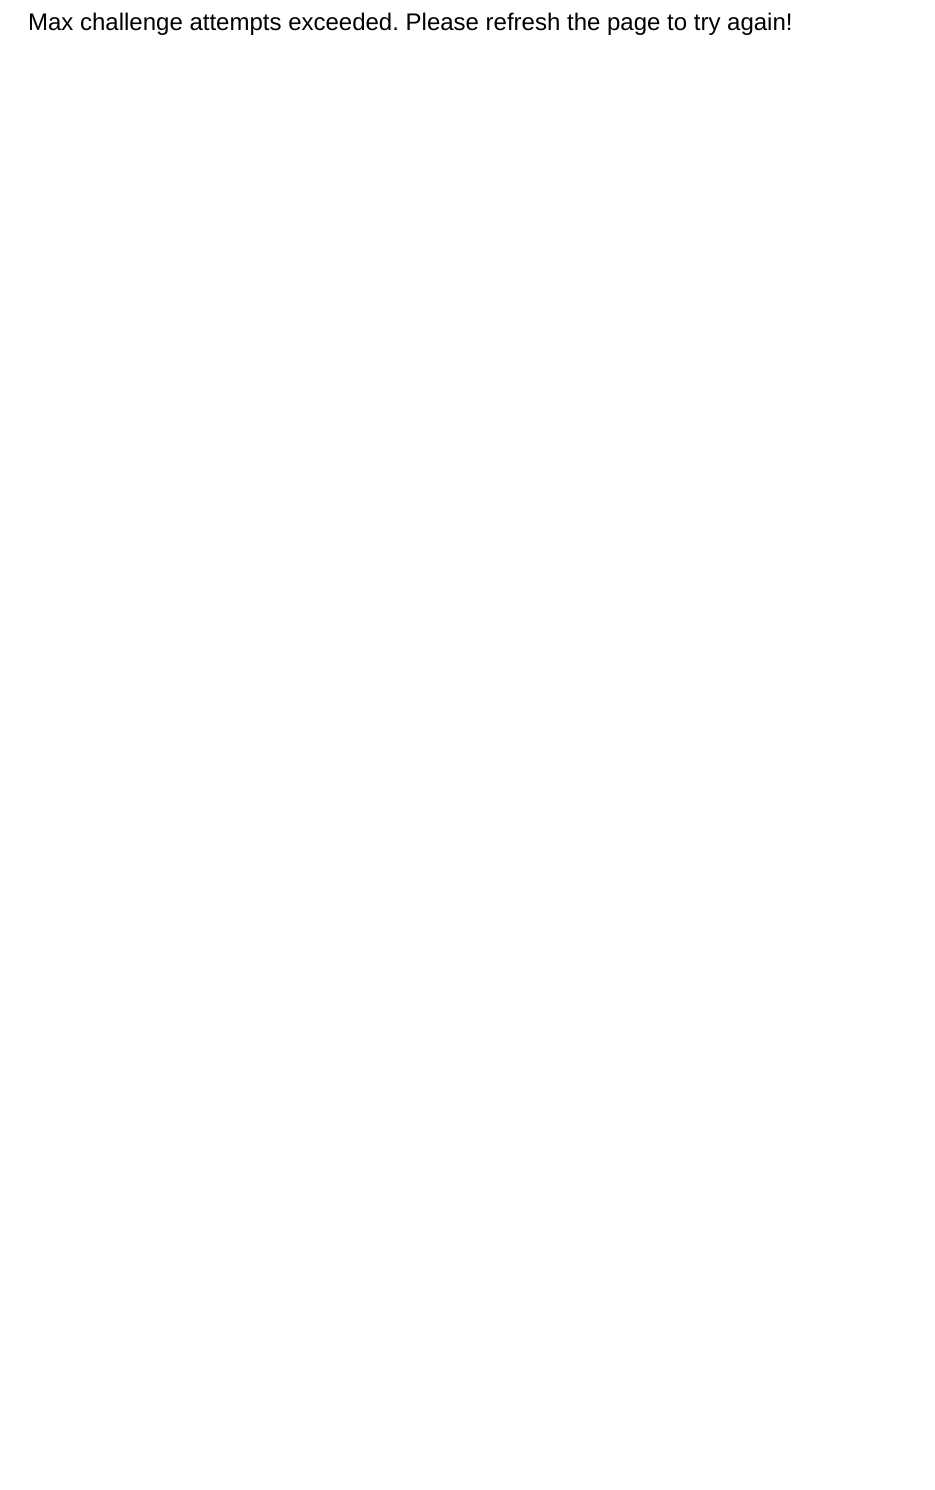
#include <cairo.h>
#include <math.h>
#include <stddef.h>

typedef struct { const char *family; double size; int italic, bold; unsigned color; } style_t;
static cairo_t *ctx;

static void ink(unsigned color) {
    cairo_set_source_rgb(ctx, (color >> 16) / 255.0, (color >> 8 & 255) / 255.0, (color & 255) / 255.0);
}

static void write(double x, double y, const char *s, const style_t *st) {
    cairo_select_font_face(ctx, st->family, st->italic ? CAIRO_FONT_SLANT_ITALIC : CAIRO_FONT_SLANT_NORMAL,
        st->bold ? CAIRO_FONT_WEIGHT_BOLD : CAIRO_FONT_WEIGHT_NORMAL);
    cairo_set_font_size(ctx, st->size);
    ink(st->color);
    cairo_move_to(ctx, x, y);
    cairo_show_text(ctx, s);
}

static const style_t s1 = {"Liberation Sans", 24, 0, 0, 0x000000};

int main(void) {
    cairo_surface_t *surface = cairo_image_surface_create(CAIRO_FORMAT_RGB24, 935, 1490);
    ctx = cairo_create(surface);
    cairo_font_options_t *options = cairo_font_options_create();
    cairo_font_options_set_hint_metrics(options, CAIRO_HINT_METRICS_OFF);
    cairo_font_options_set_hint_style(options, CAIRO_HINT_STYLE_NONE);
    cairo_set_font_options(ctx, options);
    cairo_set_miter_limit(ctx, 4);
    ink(0xffffff);
    cairo_paint(ctx);
    write(28, 30, "Max challenge attempts exceeded. Please refresh the page to try again!", &s1);
    cairo_surface_write_to_png(surface, "screenshot.png");
    cairo_font_options_destroy(options);
    cairo_destroy(ctx);
    cairo_surface_destroy(surface);
    return 0;
}
